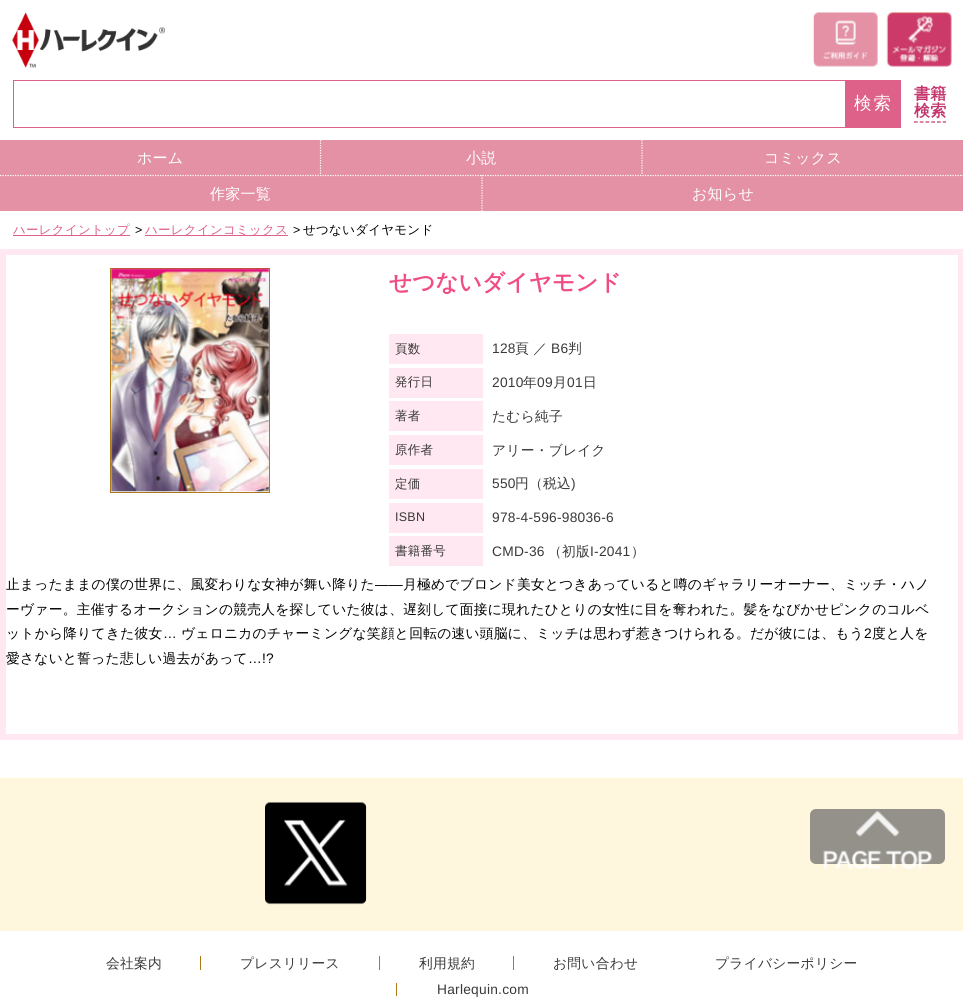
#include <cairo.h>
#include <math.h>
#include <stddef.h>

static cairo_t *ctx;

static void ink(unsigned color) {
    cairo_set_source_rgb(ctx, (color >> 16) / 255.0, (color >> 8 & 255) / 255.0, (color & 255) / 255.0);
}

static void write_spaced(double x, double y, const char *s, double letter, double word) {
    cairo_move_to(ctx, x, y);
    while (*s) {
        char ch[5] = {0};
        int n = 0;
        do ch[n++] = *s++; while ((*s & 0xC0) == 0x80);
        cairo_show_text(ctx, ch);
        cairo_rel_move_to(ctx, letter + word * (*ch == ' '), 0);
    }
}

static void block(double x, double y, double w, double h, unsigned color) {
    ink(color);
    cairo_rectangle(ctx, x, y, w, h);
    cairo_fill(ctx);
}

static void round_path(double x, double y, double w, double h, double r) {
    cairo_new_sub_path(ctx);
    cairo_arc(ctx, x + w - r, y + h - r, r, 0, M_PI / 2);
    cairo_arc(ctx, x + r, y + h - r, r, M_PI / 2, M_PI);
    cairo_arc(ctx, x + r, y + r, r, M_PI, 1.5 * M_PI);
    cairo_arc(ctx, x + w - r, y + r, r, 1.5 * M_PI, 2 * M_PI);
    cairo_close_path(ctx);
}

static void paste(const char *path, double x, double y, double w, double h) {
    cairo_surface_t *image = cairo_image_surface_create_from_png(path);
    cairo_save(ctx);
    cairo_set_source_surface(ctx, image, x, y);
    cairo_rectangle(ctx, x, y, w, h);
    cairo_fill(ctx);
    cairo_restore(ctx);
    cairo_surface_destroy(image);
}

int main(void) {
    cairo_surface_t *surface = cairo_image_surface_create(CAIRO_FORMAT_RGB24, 963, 1003);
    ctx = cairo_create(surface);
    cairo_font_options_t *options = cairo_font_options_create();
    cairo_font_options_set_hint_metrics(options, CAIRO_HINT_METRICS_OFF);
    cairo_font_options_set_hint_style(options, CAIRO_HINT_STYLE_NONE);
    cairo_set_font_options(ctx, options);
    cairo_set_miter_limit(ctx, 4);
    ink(0xffffff);
    cairo_paint(ctx);
    paste("pic1.png", 12, 12, 153, 56);
    paste("pic2.png", 813, 12, 65, 55);
    paste("pic3.png", 886, 12, 66, 55);
    cairo_rectangle(ctx, 13.5, 80.5, 832, 47);
    ink(0xdd6188);
    cairo_set_line_width(ctx, 1);
    cairo_stroke(ctx);
    block(846, 80, 55, 48, 0xdd6188);
    cairo_select_font_face(ctx, "WenQuanYi Zen Hei Medium", CAIRO_FONT_SLANT_NORMAL, CAIRO_FONT_WEIGHT_NORMAL);
    cairo_set_font_size(ctx, 17.5);
    ink(0xffffff);
    write_spaced(854, 109, "検索", 2, 0);
    cairo_new_path(ctx);
    cairo_move_to(ctx, 914, 122);
    cairo_line_to(ctx, 946, 122);
    ink(0xc4346c);
    cairo_set_line_width(ctx, 1.2);
    cairo_set_dash(ctx, (double[]){3.75, 2}, 2, 0);
    cairo_stroke(ctx);
    cairo_select_font_face(ctx, "WenQuanYi Zen Hei", CAIRO_FONT_SLANT_NORMAL, CAIRO_FONT_WEIGHT_BOLD);
    cairo_set_font_size(ctx, 16);
    write_spaced(914, 99, "書籍", 0.25, 0);
    write_spaced(914, 116, "検索", 0.25, 0);
    block(0, 140, 963, 71, 0xe491a5);
    cairo_new_path(ctx);
    cairo_move_to(ctx, 320.5, 140);
    cairo_line_to(ctx, 320.5, 175);
    ink(0xffffff);
    cairo_set_dash(ctx, (double[]){1.25, 1.25}, 2, 0);
    cairo_stroke(ctx);
    cairo_select_font_face(ctx, "WenQuanYi Zen Hei Medium", CAIRO_FONT_SLANT_NORMAL, CAIRO_FONT_WEIGHT_NORMAL);
    cairo_set_font_size(ctx, 15);
    write_spaced(137, 163, "ホーム", 0.25, 0);
    cairo_new_path(ctx);
    cairo_move_to(ctx, 642, 140);
    cairo_line_to(ctx, 642, 175);
    cairo_stroke(ctx);
    write_spaced(466, 163, "小説", 0.25, 0);
    write_spaced(764, 163, "コミックス", 0.25, 0);
    cairo_new_path(ctx);
    cairo_move_to(ctx, 482, 175);
    cairo_line_to(ctx, 482, 211);
    cairo_stroke(ctx);
    cairo_new_path(ctx);
    cairo_move_to(ctx, 0, 175.5);
    cairo_line_to(ctx, 481, 175.5);
    cairo_stroke(ctx);
    write_spaced(210, 199, "作家一覧", 0.25, 0);
    cairo_new_path(ctx);
    cairo_move_to(ctx, 482.5, 175.5);
    cairo_line_to(ctx, 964, 175.5);
    cairo_stroke(ctx);
    write_spaced(692, 199, "お知らせ", 0.25, 0);
    block(13, 235, 117, 1, 0xdd6188);
    cairo_set_font_size(ctx, 12.5);
    write_spaced(13, 234, "ハーレクイントップ", 0.25, 0);
    cairo_select_font_face(ctx, "Liberation Sans", CAIRO_FONT_SLANT_NORMAL, CAIRO_FONT_WEIGHT_NORMAL);
    ink(0x000000);
    write_spaced(135, 234, ">", 0.25, 0);
    block(145, 235, 143, 1, 0xdd6188);
    cairo_select_font_face(ctx, "WenQuanYi Zen Hei Medium", CAIRO_FONT_SLANT_NORMAL, CAIRO_FONT_WEIGHT_NORMAL);
    write_spaced(145, 234, "ハーレクインコミックス", 0.25, 0);
    cairo_select_font_face(ctx, "Liberation Sans", CAIRO_FONT_SLANT_NORMAL, CAIRO_FONT_WEIGHT_NORMAL);
    ink(0x000000);
    write_spaced(293, 234, ">", 0.25, 0);
    cairo_select_font_face(ctx, "WenQuanYi Zen Hei Medium", CAIRO_FONT_SLANT_NORMAL, CAIRO_FONT_WEIGHT_NORMAL);
    write_spaced(303, 234, "せつないダイヤモンド", 0.25, 0);
    block(0, 249, 963, 491, 0xffe8f1);
    block(6, 255, 952, 479, 0xffffff);
    cairo_rectangle(ctx, 110.5, 268.5, 159, 224);
    ink(0xad791b);
    cairo_set_line_width(ctx, 1);
    cairo_set_dash(ctx, NULL, 0, 0);
    cairo_stroke(ctx);
    paste("pic4.png", 111, 268, 158, 225);
    cairo_select_font_face(ctx, "WenQuanYi Zen Hei", CAIRO_FONT_SLANT_NORMAL, CAIRO_FONT_WEIGHT_BOLD);
    cairo_set_font_size(ctx, 22.5);
    ink(0xf04d86);
    write_spaced(389, 290, "せつないダイヤモンド", 0.25, 0);
    block(389, 334, 94, 30, 0xffe8f1);
    cairo_select_font_face(ctx, "WenQuanYi Zen Hei Medium", CAIRO_FONT_SLANT_NORMAL, CAIRO_FONT_WEIGHT_NORMAL);
    cairo_set_font_size(ctx, 12.5);
    ink(0x393939);
    write_spaced(395, 353, "頁数", 0.25, 0);
    cairo_select_font_face(ctx, "Liberation Sans", CAIRO_FONT_SLANT_NORMAL, CAIRO_FONT_WEIGHT_NORMAL);
    cairo_set_font_size(ctx, 13.75);
    write_spaced(492, 353, "128", 0.25, 0);
    cairo_select_font_face(ctx, "WenQuanYi Zen Hei Medium", CAIRO_FONT_SLANT_NORMAL, CAIRO_FONT_WEIGHT_NORMAL);
    write_spaced(515, 353, "頁 ／", 0.25, 0);
    cairo_select_font_face(ctx, "Liberation Sans", CAIRO_FONT_SLANT_NORMAL, CAIRO_FONT_WEIGHT_NORMAL);
    write_spaced(551, 353, "B6", 0.25, 0);
    cairo_select_font_face(ctx, "WenQuanYi Zen Hei Medium", CAIRO_FONT_SLANT_NORMAL, CAIRO_FONT_WEIGHT_NORMAL);
    write_spaced(568, 353, "判", 0.25, 0);
    block(389, 368, 94, 30, 0xffe8f1);
    cairo_set_font_size(ctx, 12.5);
    ink(0x393939);
    write_spaced(395, 386, "発行日", 0.25, 0);
    cairo_select_font_face(ctx, "Liberation Sans", CAIRO_FONT_SLANT_NORMAL, CAIRO_FONT_WEIGHT_NORMAL);
    cairo_set_font_size(ctx, 13.75);
    write_spaced(492, 387, "2010", 0.25, 0);
    cairo_select_font_face(ctx, "WenQuanYi Zen Hei Medium", CAIRO_FONT_SLANT_NORMAL, CAIRO_FONT_WEIGHT_NORMAL);
    write_spaced(523, 387, "年", 0.25, 0);
    cairo_select_font_face(ctx, "Liberation Sans", CAIRO_FONT_SLANT_NORMAL, CAIRO_FONT_WEIGHT_NORMAL);
    write_spaced(537, 387, "09", 0.25, 0);
    cairo_select_font_face(ctx, "WenQuanYi Zen Hei Medium", CAIRO_FONT_SLANT_NORMAL, CAIRO_FONT_WEIGHT_NORMAL);
    write_spaced(553, 387, "月", 0.25, 0);
    cairo_select_font_face(ctx, "Liberation Sans", CAIRO_FONT_SLANT_NORMAL, CAIRO_FONT_WEIGHT_NORMAL);
    write_spaced(567, 387, "01", 0.25, 0);
    cairo_select_font_face(ctx, "WenQuanYi Zen Hei Medium", CAIRO_FONT_SLANT_NORMAL, CAIRO_FONT_WEIGHT_NORMAL);
    write_spaced(583, 387, "日", 0.25, 0);
    block(389, 401, 94, 30, 0xffe8f1);
    cairo_set_font_size(ctx, 12.5);
    ink(0x393939);
    write_spaced(395, 420, "著者", 0.25, 0);
    cairo_set_font_size(ctx, 13.75);
    write_spaced(492, 421, "たむら純子", 0.25, 0);
    block(389, 435, 94, 30, 0xffe8f1);
    cairo_set_font_size(ctx, 12.5);
    ink(0x393939);
    write_spaced(395, 454, "原作者", 0.25, 0);
    cairo_set_font_size(ctx, 13.75);
    write_spaced(492, 455, "アリー・ブレイク", 0.25, 0);
    block(389, 469, 94, 30, 0xffe8f1);
    cairo_set_font_size(ctx, 12.5);
    ink(0x393939);
    write_spaced(395, 488, "定価", 0.25, 0);
    cairo_select_font_face(ctx, "Liberation Sans", CAIRO_FONT_SLANT_NORMAL, CAIRO_FONT_WEIGHT_NORMAL);
    cairo_set_font_size(ctx, 13.75);
    write_spaced(492, 488, "550", 0.25, 0);
    cairo_select_font_face(ctx, "WenQuanYi Zen Hei Medium", CAIRO_FONT_SLANT_NORMAL, CAIRO_FONT_WEIGHT_NORMAL);
    write_spaced(515, 488, "円（税込", 0.25, 0);
    cairo_select_font_face(ctx, "Liberation Sans", CAIRO_FONT_SLANT_NORMAL, CAIRO_FONT_WEIGHT_NORMAL);
    write_spaced(571, 488, ")", 0.25, 0);
    block(389, 503, 94, 30, 0xffe8f1);
    cairo_set_font_size(ctx, 12.5);
    ink(0x393939);
    write_spaced(395, 521, "ISBN", 0.25, 0);
    cairo_set_font_size(ctx, 13.75);
    write_spaced(492, 522, "978-4-596-98036-6", 0.25, 0);
    block(389, 536, 94, 30, 0xffe8f1);
    cairo_select_font_face(ctx, "WenQuanYi Zen Hei Medium", CAIRO_FONT_SLANT_NORMAL, CAIRO_FONT_WEIGHT_NORMAL);
    cairo_set_font_size(ctx, 12.5);
    ink(0x393939);
    write_spaced(395, 555, "書籍番号", 0.25, 0);
    cairo_select_font_face(ctx, "Liberation Sans", CAIRO_FONT_SLANT_NORMAL, CAIRO_FONT_WEIGHT_NORMAL);
    cairo_set_font_size(ctx, 13.75);
    write_spaced(492, 556, "CMD-36", 0.25, 0);
    cairo_select_font_face(ctx, "WenQuanYi Zen Hei Medium", CAIRO_FONT_SLANT_NORMAL, CAIRO_FONT_WEIGHT_NORMAL);
    write_spaced(548, 556, "（初版", 0.25, 0);
    cairo_select_font_face(ctx, "Liberation Sans", CAIRO_FONT_SLANT_NORMAL, CAIRO_FONT_WEIGHT_NORMAL);
    write_spaced(590, 556, "I-2041", 0.25, 0);
    cairo_select_font_face(ctx, "WenQuanYi Zen Hei Medium", CAIRO_FONT_SLANT_NORMAL, CAIRO_FONT_WEIGHT_NORMAL);
    write_spaced(631, 556, "）", 0.25, 0);
    ink(0x000000);
    write_spaced(6, 589, "止まったままの僕の世界に、風変わりな女神が舞い降りた", 0.25, 0);
    cairo_select_font_face(ctx, "Liberation Sans", CAIRO_FONT_SLANT_NORMAL, CAIRO_FONT_WEIGHT_NORMAL);
    write_spaced(375, 589, "——", 0.25, 0);
    cairo_select_font_face(ctx, "WenQuanYi Zen Hei Medium", CAIRO_FONT_SLANT_NORMAL, CAIRO_FONT_WEIGHT_NORMAL);
    write_spaced(403, 589, "月極めでブロンド美女とつきあっていると噂のギャラリーオーナー、ミッチ・ハノ", 0.25, 0);
    write_spaced(6, 614, "ーヴァー。主催するオークションの競売人を探していた彼は、遅刻して面接に現れたひとりの女性に目を奪われた。髪をなびかせピンクのコルベ", 0.25, 0);
    write_spaced(6, 638, "ットから降りてきた彼女", 0.25, 0);
    cairo_select_font_face(ctx, "Liberation Sans", CAIRO_FONT_SLANT_NORMAL, CAIRO_FONT_WEIGHT_NORMAL);
    write_spaced(163, 638, "…", 0.25, 0);
    cairo_select_font_face(ctx, "WenQuanYi Zen Hei Medium", CAIRO_FONT_SLANT_NORMAL, CAIRO_FONT_WEIGHT_NORMAL);
    write_spaced(181, 638, "ヴェロニカのチャーミングな笑顔と回転の速い頭脳に、ミッチは思わず惹きつけられる。だが彼には、もう", 0.25, 0);
    cairo_select_font_face(ctx, "Liberation Sans", CAIRO_FONT_SLANT_NORMAL, CAIRO_FONT_WEIGHT_NORMAL);
    write_spaced(864, 638, "2", 0.25, 0);
    cairo_select_font_face(ctx, "WenQuanYi Zen Hei Medium", CAIRO_FONT_SLANT_NORMAL, CAIRO_FONT_WEIGHT_NORMAL);
    write_spaced(872, 638, "度と人を", 0.25, 0);
    write_spaced(6, 663, "愛さないと誓った悲しい過去があって", 0.25, 0);
    cairo_select_font_face(ctx, "Liberation Sans", CAIRO_FONT_SLANT_NORMAL, CAIRO_FONT_WEIGHT_NORMAL);
    write_spaced(248, 663, "…!?", 0.25, 0);
    block(0, 778, 963, 153, 0xfff6de);
    paste("pic5.png", 265, 802, 102, 103);
    ink(0x94918a);
    round_path(810, 809, 135, 55, 6);
    cairo_fill(ctx);
    paste("pic6.png", 823, 810, 110, 59);
    cairo_select_font_face(ctx, "WenQuanYi Zen Hei Medium", CAIRO_FONT_SLANT_NORMAL, CAIRO_FONT_WEIGHT_NORMAL);
    ink(0x393939);
    write_spaced(106, 968, "会社案内", 0.25, 0);
    block(200, 956, 1, 14, 0xad791b);
    ink(0x393939);
    write_spaced(240, 968, "プレスリリース", 0.25, 0);
    block(379, 956, 1, 14, 0xad791b);
    ink(0x393939);
    write_spaced(419, 968, "利用規約", 0.25, 0);
    block(513, 956, 1, 14, 0xad791b);
    ink(0x393939);
    write_spaced(553, 968, "お問い合わせ", 0.25, 0);
    write_spaced(715, 968, "プライバシーポリシー", 0.25, 0);
    block(396, 983, 1, 13, 0xad791b);
    cairo_select_font_face(ctx, "Liberation Sans", CAIRO_FONT_SLANT_NORMAL, CAIRO_FONT_WEIGHT_NORMAL);
    ink(0x393939);
    write_spaced(437, 994, "Harlequin.com", 0.25, 0);
    cairo_surface_write_to_png(surface, "screenshot.png");
    cairo_font_options_destroy(options);
    cairo_destroy(ctx);
    cairo_surface_destroy(surface);
    return 0;
}
